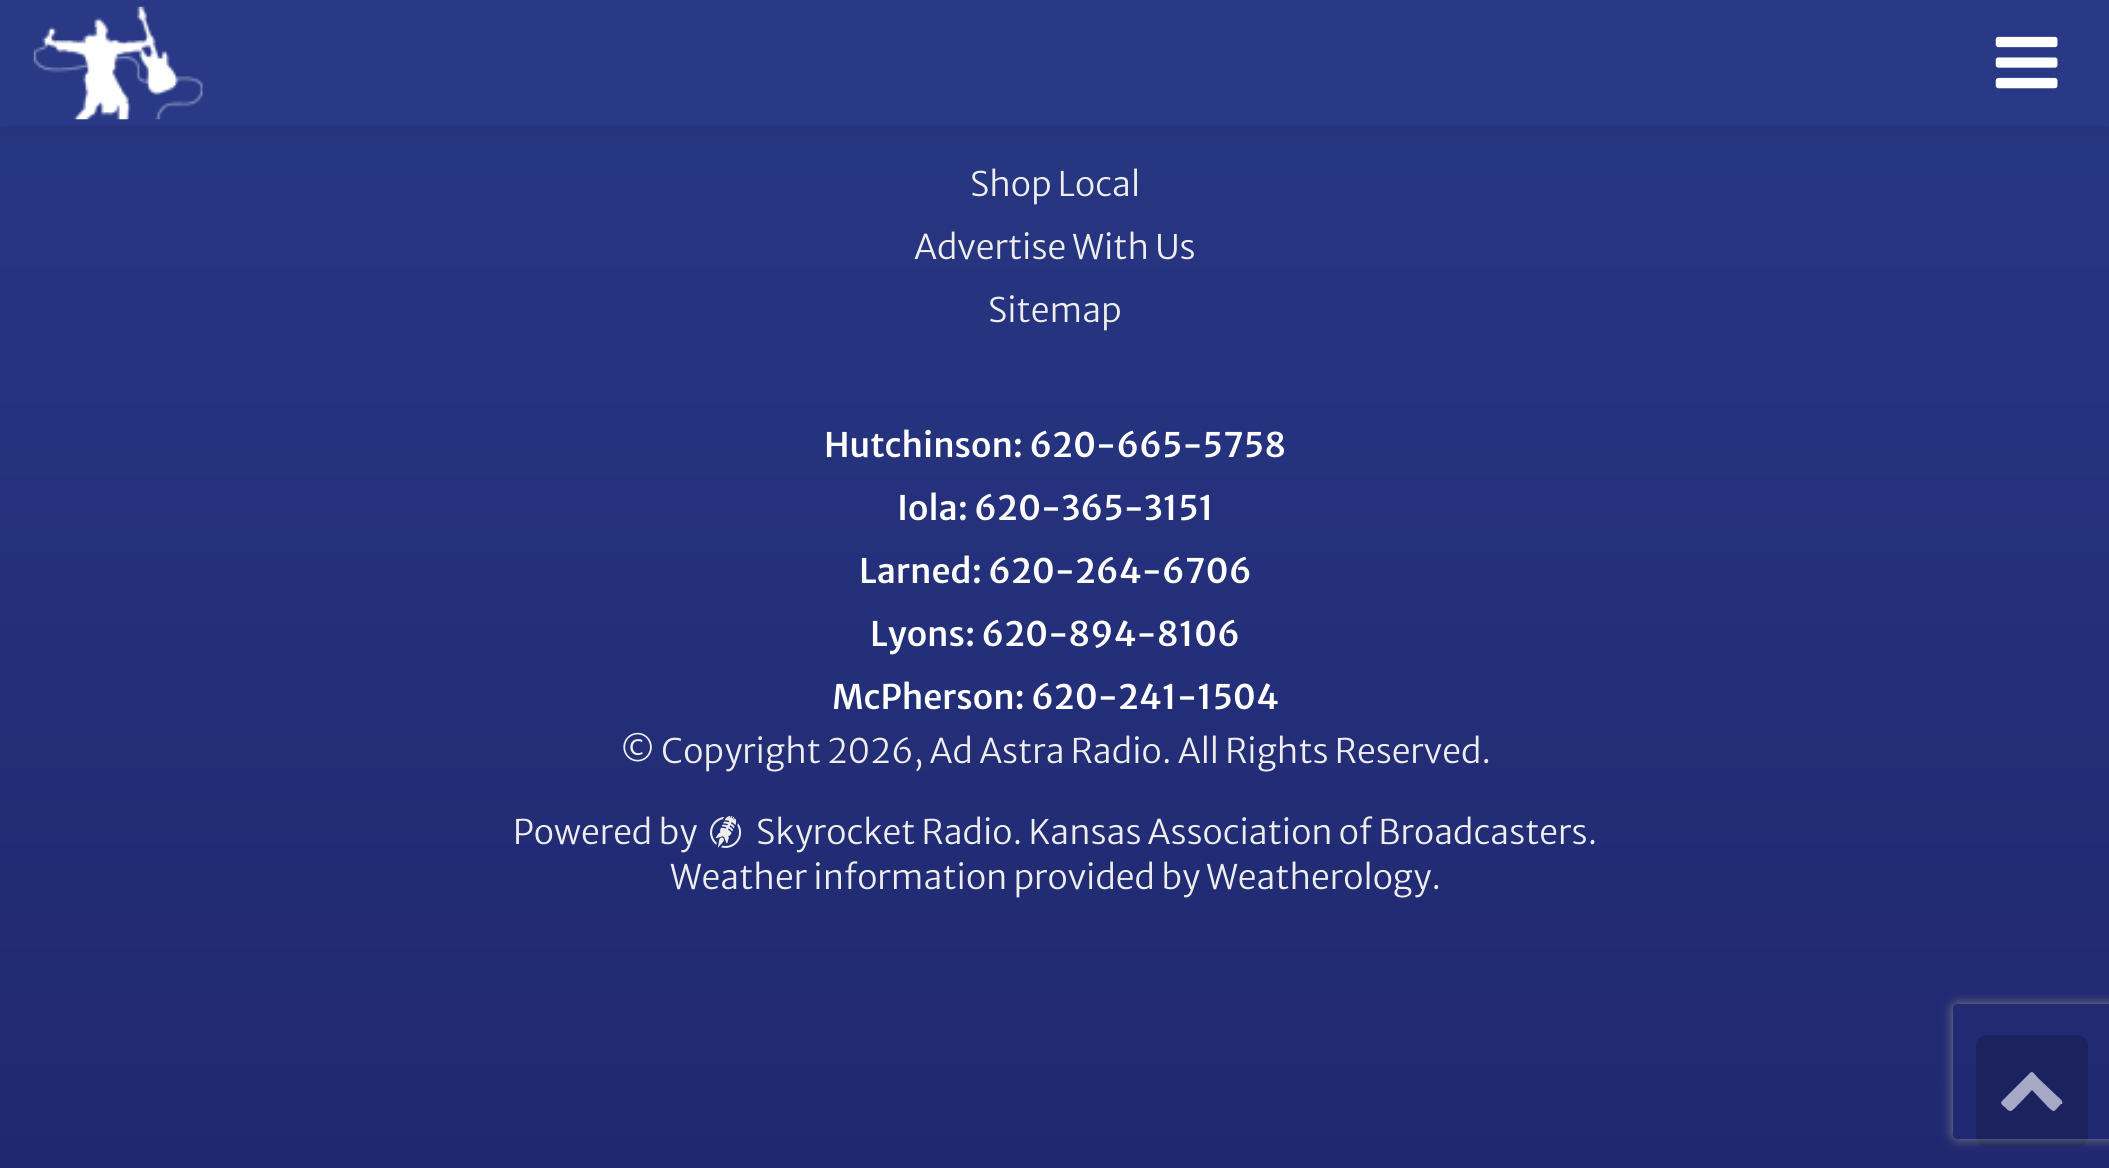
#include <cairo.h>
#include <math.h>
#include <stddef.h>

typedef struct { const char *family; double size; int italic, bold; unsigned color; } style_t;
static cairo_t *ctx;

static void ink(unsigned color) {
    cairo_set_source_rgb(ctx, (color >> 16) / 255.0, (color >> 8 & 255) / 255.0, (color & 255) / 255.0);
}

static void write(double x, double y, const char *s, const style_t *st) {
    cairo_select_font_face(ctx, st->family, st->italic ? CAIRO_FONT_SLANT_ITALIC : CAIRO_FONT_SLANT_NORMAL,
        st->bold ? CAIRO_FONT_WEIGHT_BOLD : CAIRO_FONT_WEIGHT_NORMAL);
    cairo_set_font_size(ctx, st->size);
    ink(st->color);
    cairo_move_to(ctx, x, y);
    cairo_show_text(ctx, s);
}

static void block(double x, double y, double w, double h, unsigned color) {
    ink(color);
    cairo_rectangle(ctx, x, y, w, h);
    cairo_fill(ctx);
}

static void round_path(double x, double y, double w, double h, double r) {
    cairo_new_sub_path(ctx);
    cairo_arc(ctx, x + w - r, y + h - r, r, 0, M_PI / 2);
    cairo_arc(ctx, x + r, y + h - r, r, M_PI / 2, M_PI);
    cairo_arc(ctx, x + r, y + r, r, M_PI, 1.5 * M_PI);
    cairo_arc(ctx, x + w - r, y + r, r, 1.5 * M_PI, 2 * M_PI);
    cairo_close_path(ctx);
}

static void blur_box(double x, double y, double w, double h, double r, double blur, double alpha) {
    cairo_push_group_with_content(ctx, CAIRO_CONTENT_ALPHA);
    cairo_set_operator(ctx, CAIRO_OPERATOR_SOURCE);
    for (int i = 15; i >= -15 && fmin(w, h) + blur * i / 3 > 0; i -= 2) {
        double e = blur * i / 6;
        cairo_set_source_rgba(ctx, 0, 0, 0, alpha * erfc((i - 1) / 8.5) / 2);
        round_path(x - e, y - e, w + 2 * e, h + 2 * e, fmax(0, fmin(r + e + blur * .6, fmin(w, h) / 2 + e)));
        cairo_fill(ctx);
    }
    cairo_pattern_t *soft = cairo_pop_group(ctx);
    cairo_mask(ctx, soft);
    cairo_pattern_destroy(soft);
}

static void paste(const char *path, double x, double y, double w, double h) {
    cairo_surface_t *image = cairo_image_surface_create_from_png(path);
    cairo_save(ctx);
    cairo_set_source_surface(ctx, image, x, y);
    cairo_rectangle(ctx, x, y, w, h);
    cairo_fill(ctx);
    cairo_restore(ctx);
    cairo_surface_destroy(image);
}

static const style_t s1 = {"Merriweather Sans Light", 33.75, 0, 0, 0xeeeeee};
static const style_t s2 = {"Merriweather Sans Medium", 33.75, 0, 0, 0xffffff};

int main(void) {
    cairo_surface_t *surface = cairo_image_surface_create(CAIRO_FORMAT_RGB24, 2109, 1168);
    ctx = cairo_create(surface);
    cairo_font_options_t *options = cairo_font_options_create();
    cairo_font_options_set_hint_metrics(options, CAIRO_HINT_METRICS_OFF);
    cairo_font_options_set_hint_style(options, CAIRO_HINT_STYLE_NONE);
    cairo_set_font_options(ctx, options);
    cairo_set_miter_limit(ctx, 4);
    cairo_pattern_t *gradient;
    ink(0xffffff);
    cairo_paint(ctx);
    gradient = cairo_pattern_create_linear(1055, -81, 1055, 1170);
    cairo_pattern_add_color_stop_rgba(gradient, 0, 0.161, 0.224, 0.525, 1);
    cairo_pattern_add_color_stop_rgba(gradient, 1, 0.125, 0.157, 0.439, 1);
    cairo_set_source(ctx, gradient);
    cairo_pattern_destroy(gradient);
    cairo_rectangle(ctx, 0, 126, 2109, 1042);
    cairo_fill(ctx);
    ink(0x000000);
    blur_box(0, 0, 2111, 126, 0, 22.5, 0.1);
    block(0, 0, 2109, 126, 0x293986);
    paste("pic1.png", 33, 6, 170, 114);
    paste("pic2.png", 1995, 36, 63, 53);
    write(970, 196, "Shop Local", &s1);
    write(914, 259, "Advertise With Us", &s1);
    write(988, 322, "Sitemap", &s1);
    write(824, 457, "Hutchinson: 620-665-5758", &s2);
    write(897, 520, "Iola: 620-365-3151", &s2);
    write(859, 583, "Larned: 620-264-6706", &s2);
    write(870, 646, "Lyons: 620-894-8106", &s2);
    write(832, 709, "McPherson: 620-241-1504", &s2);
    write(620, 763, "© Copyright 2026, Ad Astra Radio. All Rights Reserved.", &s1);
    write(513, 844, "Powered by", &s1);
    paste("pic3.png", 710, 815, 32, 33);
    write(756, 844, "Skyrocket Radio. Kansas Association of Broadcasters.", &s1);
    write(670, 889, "Weather information provided by Weatherology.", &s1);
    ink(0x1b225d);
    round_path(1976, 1035, 112, 113, 11);
    cairo_fill(ctx);
    ink(0xa6a9c6);
    cairo_new_path(ctx);
    cairo_move_to(ctx, 2061, 1104);
    cairo_curve_to(ctx, 2054, 1111, 2055, 1114, 2048, 1107);
    cairo_line_to(ctx, 2032, 1090);
    cairo_curve_to(ctx, 2029, 1093, 2013, 1111, 2011, 1111);
    cairo_curve_to(ctx, 2009, 1111, 2007, 1110, 2006, 1108);
    cairo_curve_to(ctx, 2005, 1107, 1999, 1104, 2002, 1101);
    cairo_line_to(ctx, 2025, 1078);
    cairo_curve_to(ctx, 2033, 1070, 2031, 1070, 2038, 1078);
    cairo_line_to(ctx, 2057, 1096);
    cairo_curve_to(ctx, 2058, 1097, 2064, 1101, 2062, 1104);
    cairo_close_path(ctx);
    cairo_fill(ctx);
    cairo_save(ctx);
    cairo_set_fill_rule(ctx, CAIRO_FILL_RULE_EVEN_ODD);
    cairo_new_path(ctx);
    cairo_move_to(ctx, 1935, 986);
    cairo_line_to(ctx, 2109, 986);
    cairo_line_to(ctx, 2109, 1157);
    cairo_line_to(ctx, 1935, 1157);
    cairo_close_path(ctx);
    cairo_move_to(ctx, 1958, 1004);
    cairo_line_to(ctx, 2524, 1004);
    cairo_curve_to(ctx, 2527, 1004, 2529, 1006, 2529, 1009);
    cairo_line_to(ctx, 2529, 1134);
    cairo_curve_to(ctx, 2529, 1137, 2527, 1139, 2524, 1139);
    cairo_line_to(ctx, 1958, 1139);
    cairo_curve_to(ctx, 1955, 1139, 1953, 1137, 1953, 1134);
    cairo_line_to(ctx, 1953, 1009);
    cairo_curve_to(ctx, 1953, 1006, 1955, 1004, 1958, 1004);
    cairo_close_path(ctx);
    cairo_clip(ctx);
    ink(0x808080);
    blur_box(1953, 1004, 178, 135, 5, 5.5, 1);
    cairo_restore(ctx);
    cairo_surface_write_to_png(surface, "screenshot.png");
    cairo_font_options_destroy(options);
    cairo_destroy(ctx);
    cairo_surface_destroy(surface);
    return 0;
}
